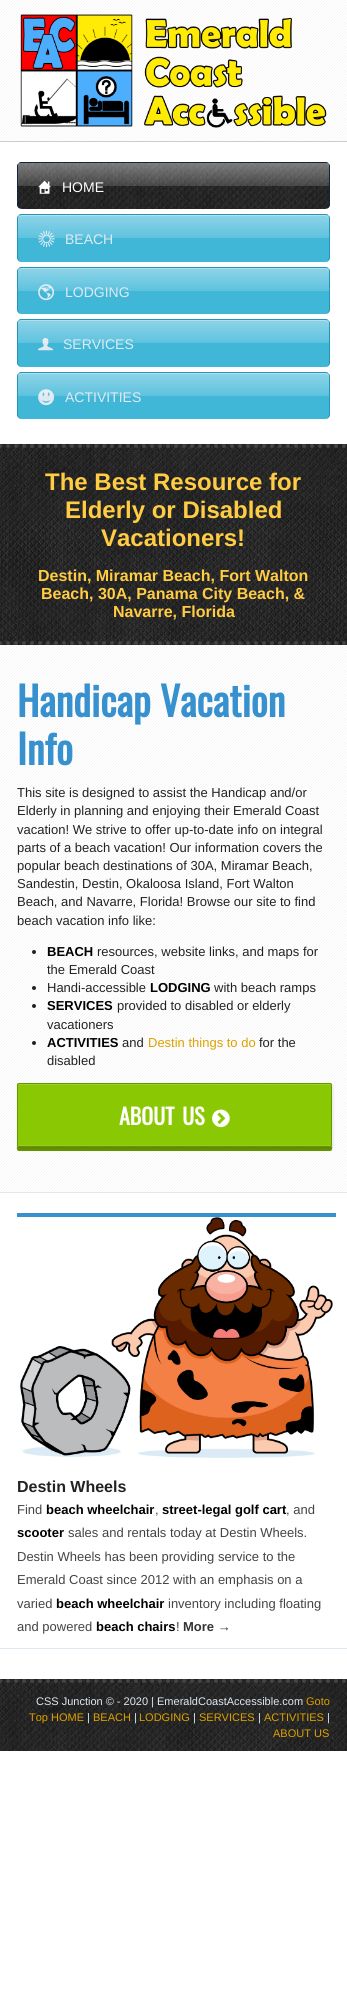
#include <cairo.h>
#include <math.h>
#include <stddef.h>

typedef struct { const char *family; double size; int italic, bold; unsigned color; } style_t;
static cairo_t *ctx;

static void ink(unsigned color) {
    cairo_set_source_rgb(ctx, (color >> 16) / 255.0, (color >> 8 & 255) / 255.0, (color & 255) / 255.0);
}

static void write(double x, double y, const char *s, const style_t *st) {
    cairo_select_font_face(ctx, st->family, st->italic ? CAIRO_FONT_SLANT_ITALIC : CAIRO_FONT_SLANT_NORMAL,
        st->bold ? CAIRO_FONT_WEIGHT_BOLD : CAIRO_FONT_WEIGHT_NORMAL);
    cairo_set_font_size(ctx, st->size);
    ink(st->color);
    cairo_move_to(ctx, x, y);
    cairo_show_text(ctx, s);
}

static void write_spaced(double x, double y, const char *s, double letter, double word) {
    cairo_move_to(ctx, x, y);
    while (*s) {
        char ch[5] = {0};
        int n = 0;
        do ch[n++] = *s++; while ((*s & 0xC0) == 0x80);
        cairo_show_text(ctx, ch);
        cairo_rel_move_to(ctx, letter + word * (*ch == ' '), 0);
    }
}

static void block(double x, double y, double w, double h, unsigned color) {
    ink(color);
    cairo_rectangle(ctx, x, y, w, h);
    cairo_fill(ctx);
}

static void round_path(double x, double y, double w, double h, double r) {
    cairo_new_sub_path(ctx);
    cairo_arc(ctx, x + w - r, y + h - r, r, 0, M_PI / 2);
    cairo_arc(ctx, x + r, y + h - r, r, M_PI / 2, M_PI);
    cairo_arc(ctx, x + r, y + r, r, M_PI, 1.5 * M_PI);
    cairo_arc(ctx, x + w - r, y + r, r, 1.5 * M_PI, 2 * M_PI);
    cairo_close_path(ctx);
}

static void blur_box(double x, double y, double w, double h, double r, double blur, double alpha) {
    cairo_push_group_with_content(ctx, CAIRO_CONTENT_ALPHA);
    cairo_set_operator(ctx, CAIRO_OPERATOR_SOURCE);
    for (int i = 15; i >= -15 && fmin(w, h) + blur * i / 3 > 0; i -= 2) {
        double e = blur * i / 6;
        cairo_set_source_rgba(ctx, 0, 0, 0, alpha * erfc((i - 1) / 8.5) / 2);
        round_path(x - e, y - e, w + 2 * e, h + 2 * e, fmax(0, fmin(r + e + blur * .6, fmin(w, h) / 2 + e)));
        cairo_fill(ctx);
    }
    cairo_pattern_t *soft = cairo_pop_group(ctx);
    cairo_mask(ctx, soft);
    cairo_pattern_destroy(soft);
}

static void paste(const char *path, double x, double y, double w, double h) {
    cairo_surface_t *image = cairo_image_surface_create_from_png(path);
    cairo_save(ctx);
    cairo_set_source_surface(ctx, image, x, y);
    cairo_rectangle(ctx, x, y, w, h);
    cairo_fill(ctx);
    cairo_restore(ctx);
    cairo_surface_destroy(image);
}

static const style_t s1 = {"Liberation Sans", 14, 0, 0, 0xffffff};
static const style_t s2 = {"Liberation Sans", 14, 0, 0, 0xdfe9f2};
static const style_t s3 = {"Liberation Sans", 24, 0, 1, 0xffcc44};
static const style_t s4 = {"Liberation Sans", 16, 0, 1, 0xffcc44};
static const style_t s5 = {"Oswald", 40, 0, 1, 0x3891cf};
static const style_t s6 = {"Liberation Sans", 13, 0, 0, 0x222222};
static const style_t s7 = {"Liberation Sans", 13, 0, 1, 0x000000};
static const style_t s8 = {"Liberation Sans", 13, 0, 0, 0xdda100};
static const style_t s9 = {"Liberation Sans", 16, 0, 1, 0x222222};
static const style_t s10 = {"Liberation Sans", 13, 0, 0, 0x444444};
static const style_t s11 = {"Liberation Sans", 13, 0, 1, 0x333333};
static const style_t s12 = {"Liberation Sans", 11, 0, 0, 0xdfe9f2};
static const style_t s13 = {"Liberation Sans", 11, 0, 0, 0xdda100};

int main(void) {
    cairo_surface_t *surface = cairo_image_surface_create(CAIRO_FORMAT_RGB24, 347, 1996);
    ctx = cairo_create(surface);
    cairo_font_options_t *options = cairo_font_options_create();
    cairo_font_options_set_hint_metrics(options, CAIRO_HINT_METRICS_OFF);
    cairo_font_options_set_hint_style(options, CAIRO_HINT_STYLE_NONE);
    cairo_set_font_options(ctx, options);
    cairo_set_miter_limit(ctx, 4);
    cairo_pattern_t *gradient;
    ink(0xffffff);
    cairo_paint(ctx);
    paste("pic1.png", 0, 0, 347, 141);
    block(0, 141, 347, 1, 0xcccccc);
    paste("pic2.png", 20, 14, 307, 114);
    paste("pic3.png", 17, 162, 313, 47);
    ink(0x10253d);
    cairo_set_fill_rule(ctx, CAIRO_FILL_RULE_EVEN_ODD);
    cairo_new_path(ctx);
    cairo_move_to(ctx, 22, 162);
    cairo_line_to(ctx, 325, 162);
    cairo_curve_to(ctx, 328, 162, 330, 164, 330, 167);
    cairo_line_to(ctx, 330, 204);
    cairo_curve_to(ctx, 330, 207, 328, 209, 325, 209);
    cairo_line_to(ctx, 22, 209);
    cairo_curve_to(ctx, 19, 209, 17, 207, 17, 204);
    cairo_line_to(ctx, 17, 167);
    cairo_curve_to(ctx, 17, 164, 19, 162, 22, 162);
    cairo_close_path(ctx);
    cairo_move_to(ctx, 22, 163);
    cairo_line_to(ctx, 325, 163);
    cairo_curve_to(ctx, 327, 163, 329, 165, 329, 167);
    cairo_line_to(ctx, 329, 204);
    cairo_curve_to(ctx, 329, 207, 327, 209, 325, 209);
    cairo_line_to(ctx, 22, 209);
    cairo_curve_to(ctx, 20, 209, 18, 207, 18, 204);
    cairo_line_to(ctx, 18, 167);
    cairo_curve_to(ctx, 18, 165, 20, 163, 22, 163);
    cairo_close_path(ctx);
    cairo_fill(ctx);
    paste("pic4.png", 38, 180, 13, 14);
    gradient = cairo_pattern_create_linear(18, 163, 18, 209);
    cairo_pattern_add_color_stop_rgba(gradient, 0, 1, 1, 1, 0.4);
    cairo_pattern_add_color_stop_rgba(gradient, 0.5, 1, 1, 1, 0.15);
    cairo_pattern_add_color_stop_rgba(gradient, 0.5, 1, 1, 1, 0);
    cairo_pattern_add_color_stop_rgba(gradient, 1, 1, 1, 1, 0);
    cairo_set_source(ctx, gradient);
    cairo_pattern_destroy(gradient);
    cairo_rectangle(ctx, 18, 163, 311, 23);
    cairo_fill(ctx);
    write(62, 192, "HOME", &s1);
    ink(0x41b7d8);
    round_path(17, 214, 313, 48, 5);
    cairo_fill(ctx);
    ink(0x7acde4);
    cairo_set_fill_rule(ctx, CAIRO_FILL_RULE_WINDING);
    cairo_new_path(ctx);
    cairo_move_to(ctx, 22, 216);
    cairo_line_to(ctx, 325, 216);
    cairo_curve_to(ctx, 327, 216, 329, 218, 329, 220);
    cairo_curve_to(ctx, 329, 217, 328, 215, 325, 215);
    cairo_line_to(ctx, 22, 215);
    cairo_line_to(ctx, 19, 216);
    cairo_curve_to(ctx, 18, 217, 18, 219, 18, 220);
    cairo_curve_to(ctx, 18, 218, 20, 216, 22, 216);
    cairo_close_path(ctx);
    cairo_fill(ctx);
    ink(0x2495b4);
    cairo_set_fill_rule(ctx, CAIRO_FILL_RULE_EVEN_ODD);
    cairo_new_path(ctx);
    cairo_move_to(ctx, 22, 214);
    cairo_line_to(ctx, 325, 214);
    cairo_curve_to(ctx, 328, 214, 330, 216, 330, 219);
    cairo_line_to(ctx, 330, 257);
    cairo_curve_to(ctx, 330, 260, 328, 262, 325, 262);
    cairo_line_to(ctx, 22, 262);
    cairo_curve_to(ctx, 19, 262, 17, 260, 17, 257);
    cairo_line_to(ctx, 17, 219);
    cairo_curve_to(ctx, 17, 216, 19, 214, 22, 214);
    cairo_close_path(ctx);
    cairo_move_to(ctx, 22, 215);
    cairo_line_to(ctx, 325, 215);
    cairo_curve_to(ctx, 327, 215, 329, 217, 329, 219);
    cairo_line_to(ctx, 329, 257);
    cairo_curve_to(ctx, 329, 260, 327, 262, 325, 262);
    cairo_line_to(ctx, 22, 262);
    cairo_curve_to(ctx, 20, 262, 18, 260, 18, 257);
    cairo_line_to(ctx, 18, 219);
    cairo_curve_to(ctx, 18, 217, 20, 215, 22, 215);
    cairo_close_path(ctx);
    cairo_fill(ctx);
    paste("pic5.png", 38, 230, 17, 18);
    gradient = cairo_pattern_create_linear(18, 215, 18, 262);
    cairo_pattern_add_color_stop_rgba(gradient, 0, 1, 1, 1, 0.4);
    cairo_pattern_add_color_stop_rgba(gradient, 0.5, 1, 1, 1, 0.15);
    cairo_pattern_add_color_stop_rgba(gradient, 0.5, 1, 1, 1, 0);
    cairo_pattern_add_color_stop_rgba(gradient, 1, 1, 1, 1, 0);
    cairo_set_source(ctx, gradient);
    cairo_pattern_destroy(gradient);
    cairo_rectangle(ctx, 18, 215, 311, 23);
    cairo_fill(ctx);
    write(65, 244, "BEACH", &s2);
    ink(0x41b7d8);
    round_path(17, 267, 313, 47, 5);
    cairo_fill(ctx);
    ink(0x7acde4);
    cairo_set_fill_rule(ctx, CAIRO_FILL_RULE_WINDING);
    cairo_new_path(ctx);
    cairo_move_to(ctx, 22, 269);
    cairo_line_to(ctx, 325, 269);
    cairo_curve_to(ctx, 327, 269, 329, 271, 329, 273);
    cairo_curve_to(ctx, 329, 270, 328, 268, 325, 268);
    cairo_line_to(ctx, 22, 268);
    cairo_line_to(ctx, 19, 269);
    cairo_curve_to(ctx, 18, 270, 18, 272, 18, 273);
    cairo_curve_to(ctx, 18, 271, 20, 269, 22, 269);
    cairo_close_path(ctx);
    cairo_fill(ctx);
    ink(0x2495b4);
    cairo_set_fill_rule(ctx, CAIRO_FILL_RULE_EVEN_ODD);
    cairo_new_path(ctx);
    cairo_move_to(ctx, 22, 267);
    cairo_line_to(ctx, 325, 267);
    cairo_curve_to(ctx, 328, 267, 330, 269, 330, 272);
    cairo_line_to(ctx, 330, 309);
    cairo_curve_to(ctx, 330, 312, 328, 314, 325, 314);
    cairo_line_to(ctx, 22, 314);
    cairo_curve_to(ctx, 19, 314, 17, 312, 17, 309);
    cairo_line_to(ctx, 17, 272);
    cairo_curve_to(ctx, 17, 269, 19, 267, 22, 267);
    cairo_close_path(ctx);
    cairo_move_to(ctx, 22, 268);
    cairo_line_to(ctx, 325, 268);
    cairo_curve_to(ctx, 327, 268, 329, 270, 329, 272);
    cairo_line_to(ctx, 329, 309);
    cairo_curve_to(ctx, 329, 312, 327, 314, 325, 314);
    cairo_line_to(ctx, 22, 314);
    cairo_curve_to(ctx, 20, 314, 18, 312, 18, 309);
    cairo_line_to(ctx, 18, 272);
    cairo_curve_to(ctx, 18, 270, 20, 268, 22, 268);
    cairo_close_path(ctx);
    cairo_fill(ctx);
    paste("pic6.png", 38, 284, 17, 17);
    gradient = cairo_pattern_create_linear(18, 268, 18, 314);
    cairo_pattern_add_color_stop_rgba(gradient, 0, 1, 1, 1, 0.4);
    cairo_pattern_add_color_stop_rgba(gradient, 0.5, 1, 1, 1, 0.15);
    cairo_pattern_add_color_stop_rgba(gradient, 0.5, 1, 1, 1, 0);
    cairo_pattern_add_color_stop_rgba(gradient, 1, 1, 1, 1, 0);
    cairo_set_source(ctx, gradient);
    cairo_pattern_destroy(gradient);
    cairo_rectangle(ctx, 18, 268, 311, 23);
    cairo_fill(ctx);
    write(65, 297, "LODGING", &s2);
    ink(0x41b7d8);
    round_path(17, 319, 313, 48, 5);
    cairo_fill(ctx);
    ink(0x7acde4);
    cairo_set_fill_rule(ctx, CAIRO_FILL_RULE_WINDING);
    cairo_new_path(ctx);
    cairo_move_to(ctx, 22, 321);
    cairo_line_to(ctx, 325, 321);
    cairo_curve_to(ctx, 327, 321, 329, 323, 329, 325);
    cairo_curve_to(ctx, 329, 322, 328, 320, 325, 320);
    cairo_line_to(ctx, 22, 320);
    cairo_line_to(ctx, 19, 321);
    cairo_curve_to(ctx, 18, 322, 18, 324, 18, 325);
    cairo_curve_to(ctx, 18, 323, 20, 321, 22, 321);
    cairo_close_path(ctx);
    cairo_fill(ctx);
    ink(0x2495b4);
    cairo_set_fill_rule(ctx, CAIRO_FILL_RULE_EVEN_ODD);
    cairo_new_path(ctx);
    cairo_move_to(ctx, 22, 319);
    cairo_line_to(ctx, 325, 319);
    cairo_curve_to(ctx, 328, 319, 330, 321, 330, 324);
    cairo_line_to(ctx, 330, 362);
    cairo_curve_to(ctx, 330, 365, 328, 367, 325, 367);
    cairo_line_to(ctx, 22, 367);
    cairo_curve_to(ctx, 19, 367, 17, 365, 17, 362);
    cairo_line_to(ctx, 17, 324);
    cairo_curve_to(ctx, 17, 321, 19, 319, 22, 319);
    cairo_close_path(ctx);
    cairo_move_to(ctx, 22, 320);
    cairo_line_to(ctx, 325, 320);
    cairo_curve_to(ctx, 327, 320, 329, 322, 329, 324);
    cairo_line_to(ctx, 329, 362);
    cairo_curve_to(ctx, 329, 365, 327, 367, 325, 367);
    cairo_line_to(ctx, 22, 367);
    cairo_curve_to(ctx, 20, 367, 18, 365, 18, 362);
    cairo_line_to(ctx, 18, 324);
    cairo_curve_to(ctx, 18, 322, 20, 320, 22, 320);
    cairo_close_path(ctx);
    cairo_fill(ctx);
    paste("pic7.png", 38, 338, 15, 13);
    gradient = cairo_pattern_create_linear(18, 320, 18, 367);
    cairo_pattern_add_color_stop_rgba(gradient, 0, 1, 1, 1, 0.4);
    cairo_pattern_add_color_stop_rgba(gradient, 0.5, 1, 1, 1, 0.15);
    cairo_pattern_add_color_stop_rgba(gradient, 0.5, 1, 1, 1, 0);
    cairo_pattern_add_color_stop_rgba(gradient, 1, 1, 1, 1, 0);
    cairo_set_source(ctx, gradient);
    cairo_pattern_destroy(gradient);
    cairo_rectangle(ctx, 18, 320, 311, 23);
    cairo_fill(ctx);
    write(63, 349, "SERVICES", &s2);
    ink(0x41b7d8);
    round_path(17, 372, 313, 47, 5);
    cairo_fill(ctx);
    ink(0x7acde4);
    cairo_set_fill_rule(ctx, CAIRO_FILL_RULE_WINDING);
    cairo_new_path(ctx);
    cairo_move_to(ctx, 22, 374);
    cairo_line_to(ctx, 325, 374);
    cairo_curve_to(ctx, 327, 374, 329, 376, 329, 378);
    cairo_curve_to(ctx, 329, 375, 328, 373, 325, 373);
    cairo_line_to(ctx, 22, 373);
    cairo_line_to(ctx, 19, 374);
    cairo_curve_to(ctx, 18, 375, 18, 377, 18, 378);
    cairo_curve_to(ctx, 18, 376, 20, 374, 22, 374);
    cairo_close_path(ctx);
    cairo_fill(ctx);
    ink(0x2495b4);
    cairo_set_fill_rule(ctx, CAIRO_FILL_RULE_EVEN_ODD);
    cairo_new_path(ctx);
    cairo_move_to(ctx, 22, 372);
    cairo_line_to(ctx, 325, 372);
    cairo_curve_to(ctx, 328, 372, 330, 374, 330, 377);
    cairo_line_to(ctx, 330, 414);
    cairo_curve_to(ctx, 330, 417, 328, 419, 325, 419);
    cairo_line_to(ctx, 22, 419);
    cairo_curve_to(ctx, 19, 419, 17, 417, 17, 414);
    cairo_line_to(ctx, 17, 377);
    cairo_curve_to(ctx, 17, 374, 19, 372, 22, 372);
    cairo_close_path(ctx);
    cairo_move_to(ctx, 22, 373);
    cairo_line_to(ctx, 325, 373);
    cairo_curve_to(ctx, 327, 373, 329, 375, 329, 377);
    cairo_line_to(ctx, 329, 414);
    cairo_curve_to(ctx, 329, 417, 327, 419, 325, 419);
    cairo_line_to(ctx, 22, 419);
    cairo_curve_to(ctx, 20, 419, 18, 417, 18, 414);
    cairo_line_to(ctx, 18, 377);
    cairo_curve_to(ctx, 18, 375, 20, 373, 22, 373);
    cairo_close_path(ctx);
    cairo_fill(ctx);
    paste("pic8.png", 38, 389, 17, 17);
    gradient = cairo_pattern_create_linear(18, 373, 18, 419);
    cairo_pattern_add_color_stop_rgba(gradient, 0, 1, 1, 1, 0.4);
    cairo_pattern_add_color_stop_rgba(gradient, 0.5, 1, 1, 1, 0.15);
    cairo_pattern_add_color_stop_rgba(gradient, 0.5, 1, 1, 1, 0);
    cairo_pattern_add_color_stop_rgba(gradient, 1, 1, 1, 1, 0);
    cairo_set_source(ctx, gradient);
    cairo_pattern_destroy(gradient);
    cairo_rectangle(ctx, 18, 373, 311, 23);
    cairo_fill(ctx);
    write(65, 402, "ACTIVITIES", &s2);
    paste("pic9.png", 0, 645, 347, 547);
    block(0, 1192, 347, 1, 0xdfe9f2);
    paste("pic10.png", 0, 444, 347, 201);
    cairo_new_path(ctx);
    cairo_move_to(ctx, 0, 446);
    cairo_line_to(ctx, 347, 446);
    ink(0x444444);
    cairo_set_line_width(ctx, 4);
    cairo_set_line_cap(ctx, CAIRO_LINE_CAP_ROUND);
    cairo_set_dash(ctx, (double[]){0, 8}, 2, 0);
    cairo_stroke(ctx);
    cairo_new_path(ctx);
    cairo_move_to(ctx, 0, 643);
    cairo_line_to(ctx, 347, 643);
    cairo_stroke(ctx);
    write(45, 490, "The Best Resource for", &s3);
    write(65, 518, "Elderly or Disabled", &s3);
    write(101, 546, "Vacationers!", &s3);
    write(38, 581, "Destin, Miramar Beach, Fort Walton", &s4);
    write(41, 599, "Beach, 30A, Panama City Beach, &", &s4);
    write(113, 617, "Navarre, Florida", &s4);
    write(17, 717, "Handicap Vacation", &s5);
    write(17, 765, "Info", &s5);
    write(17, 797, "This site is designed to assist the Handicap and/or", &s6);
    write(17, 815, "Elderly in planning and enjoying their Emerald Coast", &s6);
    write(17, 834, "vacation! We strive to offer up-to-date info on integral", &s6);
    write(17, 852, "parts of a beach vacation! Our information covers the", &s6);
    write(17, 870, "popular beach destinations of 30A, Miramar Beach,", &s6);
    write(17, 888, "Sandestin, Destin, Okaloosa Island, Fort Walton", &s6);
    write(17, 906, "Beach, and Navarre, Florida! Browse our site to find", &s6);
    write(17, 925, "beach vacation info like:", &s6);
    cairo_new_path(ctx);
    cairo_arc(ctx, 34, 952, 2, 0, 2 * M_PI);
    cairo_fill(ctx);
    write(47, 956, "BEACH", &s7);
    write(97, 956, "resources, website links, and maps for", &s6);
    write(47, 974, "the Emerald Coast", &s6);
    cairo_new_path(ctx);
    cairo_arc(ctx, 34, 988, 2, 0, 2 * M_PI);
    cairo_fill(ctx);
    write(47, 992, "Handi-accessible", &s6);
    write(150, 992, "LODGING", &s7);
    write(214, 992, "with beach ramps", &s6);
    cairo_new_path(ctx);
    cairo_arc(ctx, 34, 1006, 2, 0, 2 * M_PI);
    cairo_fill(ctx);
    write(47, 1010, "SERVICES", &s7);
    write(117, 1010, "provided to disabled or elderly", &s6);
    write(47, 1029, "vacationers", &s6);
    cairo_new_path(ctx);
    cairo_arc(ctx, 34, 1043, 2, 0, 2 * M_PI);
    cairo_fill(ctx);
    write(47, 1047, "ACTIVITIES", &s7);
    write(122, 1047, "and", &s6);
    write(148, 1047, "Destin things to do", &s8);
    write(259, 1047, "for the", &s6);
    write(47, 1065, "disabled", &s6);
    ink(0x689603);
    cairo_set_fill_rule(ctx, CAIRO_FILL_RULE_WINDING);
    cairo_new_path(ctx);
    cairo_move_to(ctx, 17, 1145);
    cairo_curve_to(ctx, 17, 1147, 16, 1151, 19, 1151);
    cairo_line_to(ctx, 330, 1151);
    cairo_curve_to(ctx, 333, 1151, 332, 1147, 332, 1145);
    cairo_curve_to(ctx, 332, 1146, 331, 1147, 330, 1147);
    cairo_line_to(ctx, 19, 1147);
    cairo_curve_to(ctx, 18, 1147, 17, 1146, 17, 1145);
    cairo_close_path(ctx);
    cairo_fill(ctx);
    ink(0x000000);
    blur_box(18, 1085, 315, 64, 2, 1.5, 0.1);
    ink(0x8bc804);
    round_path(17, 1083, 315, 64, 2);
    cairo_fill(ctx);
    ink(0x9cd02a);
    cairo_new_path(ctx);
    cairo_move_to(ctx, 19, 1085);
    cairo_line_to(ctx, 330, 1085);
    cairo_curve_to(ctx, 331, 1085, 331, 1085, 331, 1086);
    cairo_curve_to(ctx, 331, 1085, 331, 1084, 330, 1084);
    cairo_line_to(ctx, 19, 1084);
    cairo_line_to(ctx, 18, 1084);
    cairo_line_to(ctx, 18, 1086);
    cairo_curve_to(ctx, 18, 1085, 18, 1085, 19, 1085);
    cairo_close_path(ctx);
    cairo_fill(ctx);
    ink(0x97ce1d);
    cairo_new_path(ctx);
    cairo_move_to(ctx, 18, 1144);
    cairo_curve_to(ctx, 18, 1145, 18, 1146, 19, 1146);
    cairo_line_to(ctx, 330, 1146);
    cairo_line_to(ctx, 331, 1146);
    cairo_line_to(ctx, 331, 1144);
    cairo_curve_to(ctx, 331, 1145, 331, 1145, 330, 1145);
    cairo_line_to(ctx, 19, 1145);
    cairo_curve_to(ctx, 18, 1145, 18, 1145, 18, 1144);
    cairo_close_path(ctx);
    cairo_fill(ctx);
    round_path(17.5, 1083.5, 314, 63, 1.5);
    ink(0x689603);
    cairo_set_line_width(ctx, 1);
    cairo_set_line_cap(ctx, CAIRO_LINE_CAP_BUTT);
    cairo_set_dash(ctx, NULL, 0, 0);
    cairo_stroke(ctx);
    cairo_select_font_face(ctx, "Oswald", CAIRO_FONT_SLANT_NORMAL, CAIRO_FONT_WEIGHT_BOLD);
    cairo_set_font_size(ctx, 22);
    ink(0xffffff);
    write_spaced(119, 1125, "ABOUT US", 0, 3);
    paste("pic11.png", 212, 1109, 18, 19);
    block(0, 1648, 347, 1, 0xdfe9f2);
    block(17, 1213, 319, 4, 0x3891cf);
    paste("pic12.png", 20, 1217, 313, 241);
    write(17, 1492, "Destin Wheels", &s9);
    write(17, 1514, "Find", &s10);
    write(46, 1514, "beach wheelchair", &s7);
    write(155, 1514, ",", &s10);
    write(162, 1514, "street-legal golf cart", &s7);
    write(286, 1514, ", and", &s10);
    write(17, 1537, "scooter", &s7);
    write(68, 1537, "sales and rentals today at Destin Wheels.", &s10);
    write(17, 1561, "Destin Wheels has been providing service to the", &s10);
    write(17, 1584, "Emerald Coast since 2012 with an emphasis on a", &s10);
    write(17, 1608, "varied", &s10);
    write(56, 1608, "beach wheelchair", &s7);
    write(168, 1608, "inventory including floating", &s10);
    write(17, 1631, "and powered", &s10);
    write(96, 1631, "beach chairs", &s7);
    write(176, 1631, "!", &s10);
    write(183, 1631, "More →", &s11);
    paste("pic13.png", 0, 1679, 347, 72);
    cairo_new_path(ctx);
    cairo_move_to(ctx, 0, 1681);
    cairo_line_to(ctx, 347, 1681);
    ink(0x444444);
    cairo_set_line_width(ctx, 4);
    cairo_set_line_cap(ctx, CAIRO_LINE_CAP_ROUND);
    cairo_set_dash(ctx, (double[]){0, 8}, 2, 0);
    cairo_stroke(ctx);
    write(36, 1705, "CSS Junction © - 2020 | EmeraldCoastAccessible.com", &s12);
    write(306, 1705, "Goto", &s13);
    write(29, 1721, "Top HOME", &s13);
    write(87, 1721, "|", &s12);
    write(93, 1721, "BEACH", &s13);
    write(134, 1721, "|", &s12);
    write(139, 1721, "LODGING", &s13);
    write(193, 1721, "|", &s12);
    write(199, 1721, "SERVICES", &s13);
    write(258, 1721, "|", &s12);
    write(264, 1721, "ACTIVITIES", &s13);
    write(327, 1721, "|", &s12);
    write(273, 1737, "ABOUT US", &s13);
    cairo_surface_write_to_png(surface, "screenshot.png");
    cairo_font_options_destroy(options);
    cairo_destroy(ctx);
    cairo_surface_destroy(surface);
    return 0;
}
